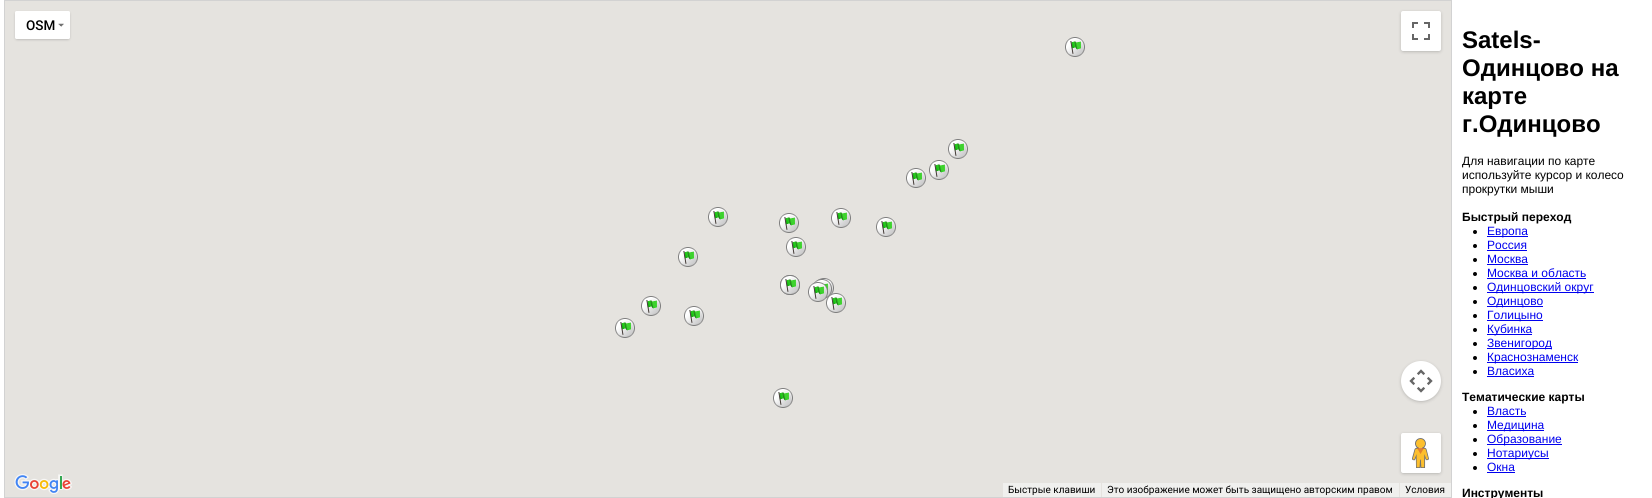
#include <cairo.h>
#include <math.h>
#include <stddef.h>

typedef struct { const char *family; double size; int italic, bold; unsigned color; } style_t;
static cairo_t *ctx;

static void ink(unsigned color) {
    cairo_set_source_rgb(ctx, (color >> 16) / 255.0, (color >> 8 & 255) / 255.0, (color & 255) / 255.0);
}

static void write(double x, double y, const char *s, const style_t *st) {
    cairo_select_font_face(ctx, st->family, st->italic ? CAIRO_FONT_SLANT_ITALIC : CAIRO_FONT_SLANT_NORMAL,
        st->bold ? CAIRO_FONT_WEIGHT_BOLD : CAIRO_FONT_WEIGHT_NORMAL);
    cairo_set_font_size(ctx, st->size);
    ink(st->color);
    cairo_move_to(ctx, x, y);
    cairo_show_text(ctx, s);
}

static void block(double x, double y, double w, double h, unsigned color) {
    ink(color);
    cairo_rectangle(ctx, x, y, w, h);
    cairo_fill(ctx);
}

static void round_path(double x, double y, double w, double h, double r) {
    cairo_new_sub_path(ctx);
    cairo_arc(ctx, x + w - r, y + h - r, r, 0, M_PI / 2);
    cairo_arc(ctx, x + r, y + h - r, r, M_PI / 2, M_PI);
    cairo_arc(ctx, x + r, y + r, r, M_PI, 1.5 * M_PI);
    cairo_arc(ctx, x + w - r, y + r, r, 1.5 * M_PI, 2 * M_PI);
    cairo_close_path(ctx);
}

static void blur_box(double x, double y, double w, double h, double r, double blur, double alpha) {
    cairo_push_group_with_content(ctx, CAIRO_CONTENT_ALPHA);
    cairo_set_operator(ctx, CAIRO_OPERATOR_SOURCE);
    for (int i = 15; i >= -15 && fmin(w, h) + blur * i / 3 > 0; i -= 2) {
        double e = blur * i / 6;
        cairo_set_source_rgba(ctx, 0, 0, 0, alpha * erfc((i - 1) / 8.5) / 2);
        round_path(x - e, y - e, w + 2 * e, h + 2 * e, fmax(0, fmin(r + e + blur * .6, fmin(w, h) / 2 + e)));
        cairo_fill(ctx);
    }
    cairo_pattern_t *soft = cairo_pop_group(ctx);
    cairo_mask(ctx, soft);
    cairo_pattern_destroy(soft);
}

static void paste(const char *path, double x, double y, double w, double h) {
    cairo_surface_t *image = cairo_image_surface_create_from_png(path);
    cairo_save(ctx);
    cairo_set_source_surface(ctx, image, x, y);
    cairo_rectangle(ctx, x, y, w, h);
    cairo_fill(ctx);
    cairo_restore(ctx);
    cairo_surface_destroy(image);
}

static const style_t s1 = {"Roboto Medium", 13.5, 0, 0, 0x000000};
static const style_t s2 = {"Roboto", 10, 0, 0, 0x000000};
static const style_t s3 = {"Liberation Sans", 24, 0, 1, 0x000000};
static const style_t s4 = {"Liberation Sans", 12, 0, 0, 0x000000};
static const style_t s5 = {"Liberation Sans", 12, 0, 1, 0x000000};
static const style_t s6 = {"Liberation Sans", 12, 0, 0, 0x0000ee};

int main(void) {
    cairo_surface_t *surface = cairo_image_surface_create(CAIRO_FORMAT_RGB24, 1652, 498);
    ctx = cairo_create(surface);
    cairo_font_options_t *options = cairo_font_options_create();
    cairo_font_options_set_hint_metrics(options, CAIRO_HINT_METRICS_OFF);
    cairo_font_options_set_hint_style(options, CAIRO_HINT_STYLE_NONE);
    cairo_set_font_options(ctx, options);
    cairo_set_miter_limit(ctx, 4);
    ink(0xffffff);
    cairo_paint(ctx);
    cairo_rectangle(ctx, 4.5, 0.5, 1447, 497);
    ink(0xd2d2d2);
    cairo_set_line_width(ctx, 1);
    cairo_stroke(ctx);
    block(5, 1, 1446, 496, 0xe5e3df);
    ink(0x000000);
    blur_box(16, 13, 53, 26, 1, 1.5, 0.3);
    ink(0xffffff);
    round_path(15, 11, 55, 28, 1.5);
    cairo_fill(ctx);
    write(26, 30, "OSM", &s1);
    paste("pic1.png", 58, 23, 6, 4);
    ink(0x000000);
    blur_box(1402, 13, 38, 38, 1, 2, 0.3);
    ink(0xffffff);
    round_path(1401, 11, 40, 40, 2);
    cairo_fill(ctx);
    paste("pic2.png", 1412, 22, 18, 18);
    paste("pic3.png", 1065, 37, 20, 20);
    paste("pic3.png", 948, 139, 20, 20);
    paste("pic3.png", 906, 168, 20, 20);
    paste("pic3.png", 929, 160, 20, 20);
    paste("pic3.png", 708, 207, 20, 20);
    paste("pic3.png", 779, 213, 20, 20);
    paste("pic3.png", 831, 208, 20, 20);
    paste("pic3.png", 876, 217, 20, 20);
    paste("pic3.png", 678, 247, 20, 20);
    paste("pic3.png", 786, 237, 20, 20);
    paste("pic3.png", 780, 275, 20, 20);
    paste("pic4.png", 780, 275, 20, 20);
    paste("pic5.png", 817, 278, 17, 20);
    paste("pic6.png", 813, 279, 19, 20);
    paste("pic3.png", 641, 296, 20, 20);
    paste("pic3.png", 684, 306, 20, 20);
    paste("pic7.png", 808, 282, 20, 20);
    paste("pic8.png", 826, 293, 20, 20);
    paste("pic3.png", 615, 318, 20, 20);
    paste("pic3.png", 773, 388, 20, 20);
    ink(0x000000);
    blur_box(1402, 363, 38, 38, 19, 2, 0.3);
    ink(0xffffff);
    cairo_arc(ctx, 1421, 381, 20, 0, 2 * M_PI);
    cairo_fill(ctx);
    paste("pic9.png", 1409, 369, 24, 24);
    ink(0x000000);
    blur_box(1402, 435, 38, 38, 1, 2, 0.3);
    ink(0xffffff);
    round_path(1401, 433, 40, 40, 2);
    cairo_fill(ctx);
    paste("pic10.png", 1412, 438, 17, 30);
    paste("pic11.png", 14, 474, 58, 20);
    block(1003, 483, 98, 14, 0xf0f0ee);
    write(1008, 493, "Быстрые клавиши", &s2);
    block(1102, 483, 297, 14, 0xf0f0ee);
    write(1107, 493, "Это изображение может быть защищено авторским правом", &s2);
    block(1400, 483, 51, 14, 0xf0f0ee);
    write(1405, 493, "Условия", &s2);
    write(1462, 48, "Satels-", &s3);
    write(1462, 76, "Одинцово на", &s3);
    write(1462, 104, "карте", &s3);
    write(1462, 132, "г.Одинцово", &s3);
    write(1462, 165, "Для навигации по карте", &s4);
    write(1462, 179, "используйте курсор и колесо", &s4);
    write(1462, 193, "прокрутки мыши", &s4);
    write(1462, 221, "Быстрый переход", &s5);
    cairo_new_path(ctx);
    cairo_arc(ctx, 1475, 232, 2, 0, 2 * M_PI);
    cairo_fill(ctx);
    block(1487, 236, 41, 1, 0x0000ee);
    write(1487, 235, "Европа", &s6);
    ink(0x000000);
    cairo_new_path(ctx);
    cairo_arc(ctx, 1475, 246, 2, 0, 2 * M_PI);
    cairo_fill(ctx);
    write(1487, 249, "Россия", &s6);
    block(1487, 250, 40, 1, 0x0000ee);
    ink(0x000000);
    cairo_new_path(ctx);
    cairo_arc(ctx, 1475, 260, 2, 0, 2 * M_PI);
    cairo_fill(ctx);
    write(1487, 263, "Москва", &s6);
    block(1487, 264, 41, 1, 0x0000ee);
    ink(0x000000);
    cairo_new_path(ctx);
    cairo_arc(ctx, 1475, 274, 2, 0, 2 * M_PI);
    cairo_fill(ctx);
    write(1487, 277, "Москва и область", &s6);
    block(1487, 278, 99, 1, 0x0000ee);
    ink(0x000000);
    cairo_new_path(ctx);
    cairo_arc(ctx, 1475, 288, 2, 0, 2 * M_PI);
    cairo_fill(ctx);
    block(1487, 292, 107, 1, 0x0000ee);
    write(1487, 291, "Одинцовский округ", &s6);
    ink(0x000000);
    cairo_new_path(ctx);
    cairo_arc(ctx, 1475, 302, 2, 0, 2 * M_PI);
    cairo_fill(ctx);
    block(1487, 306, 56, 1, 0x0000ee);
    write(1487, 305, "Одинцово", &s6);
    ink(0x000000);
    cairo_new_path(ctx);
    cairo_arc(ctx, 1475, 316, 2, 0, 2 * M_PI);
    cairo_fill(ctx);
    block(1487, 320, 56, 1, 0x0000ee);
    write(1487, 319, "Голицыно", &s6);
    ink(0x000000);
    cairo_new_path(ctx);
    cairo_arc(ctx, 1475, 330, 2, 0, 2 * M_PI);
    cairo_fill(ctx);
    block(1487, 334, 45, 1, 0x0000ee);
    write(1487, 333, "Кубинка", &s6);
    ink(0x000000);
    cairo_new_path(ctx);
    cairo_arc(ctx, 1475, 344, 2, 0, 2 * M_PI);
    cairo_fill(ctx);
    block(1487, 348, 65, 1, 0x0000ee);
    write(1487, 347, "Звенигород", &s6);
    ink(0x000000);
    cairo_new_path(ctx);
    cairo_arc(ctx, 1475, 358, 2, 0, 2 * M_PI);
    cairo_fill(ctx);
    block(1487, 362, 91, 1, 0x0000ee);
    write(1487, 361, "Краснознаменск", &s6);
    ink(0x000000);
    cairo_new_path(ctx);
    cairo_arc(ctx, 1475, 372, 2, 0, 2 * M_PI);
    cairo_fill(ctx);
    write(1487, 375, "Власиха", &s6);
    block(1487, 376, 47, 1, 0x0000ee);
    write(1462, 401, "Тематические карты", &s5);
    cairo_new_path(ctx);
    cairo_arc(ctx, 1475, 412, 2, 0, 2 * M_PI);
    cairo_fill(ctx);
    write(1487, 415, "Власть", &s6);
    block(1487, 416, 39, 1, 0x0000ee);
    ink(0x000000);
    cairo_new_path(ctx);
    cairo_arc(ctx, 1475, 426, 2, 0, 2 * M_PI);
    cairo_fill(ctx);
    block(1487, 430, 57, 1, 0x0000ee);
    write(1487, 429, "Медицина", &s6);
    ink(0x000000);
    cairo_new_path(ctx);
    cairo_arc(ctx, 1475, 440, 2, 0, 2 * M_PI);
    cairo_fill(ctx);
    block(1487, 444, 75, 1, 0x0000ee);
    write(1487, 443, "Образование", &s6);
    ink(0x000000);
    cairo_new_path(ctx);
    cairo_arc(ctx, 1475, 454, 2, 0, 2 * M_PI);
    cairo_fill(ctx);
    block(1487, 458, 62, 1, 0x0000ee);
    write(1487, 457, "Нотариусы", &s6);
    ink(0x000000);
    cairo_new_path(ctx);
    cairo_arc(ctx, 1475, 468, 2, 0, 2 * M_PI);
    cairo_fill(ctx);
    write(1487, 471, "Окна", &s6);
    block(1487, 472, 28, 1, 0x0000ee);
    write(1462, 497, "Инструменты", &s5);
    cairo_surface_write_to_png(surface, "screenshot.png");
    cairo_font_options_destroy(options);
    cairo_destroy(ctx);
    cairo_surface_destroy(surface);
    return 0;
}
